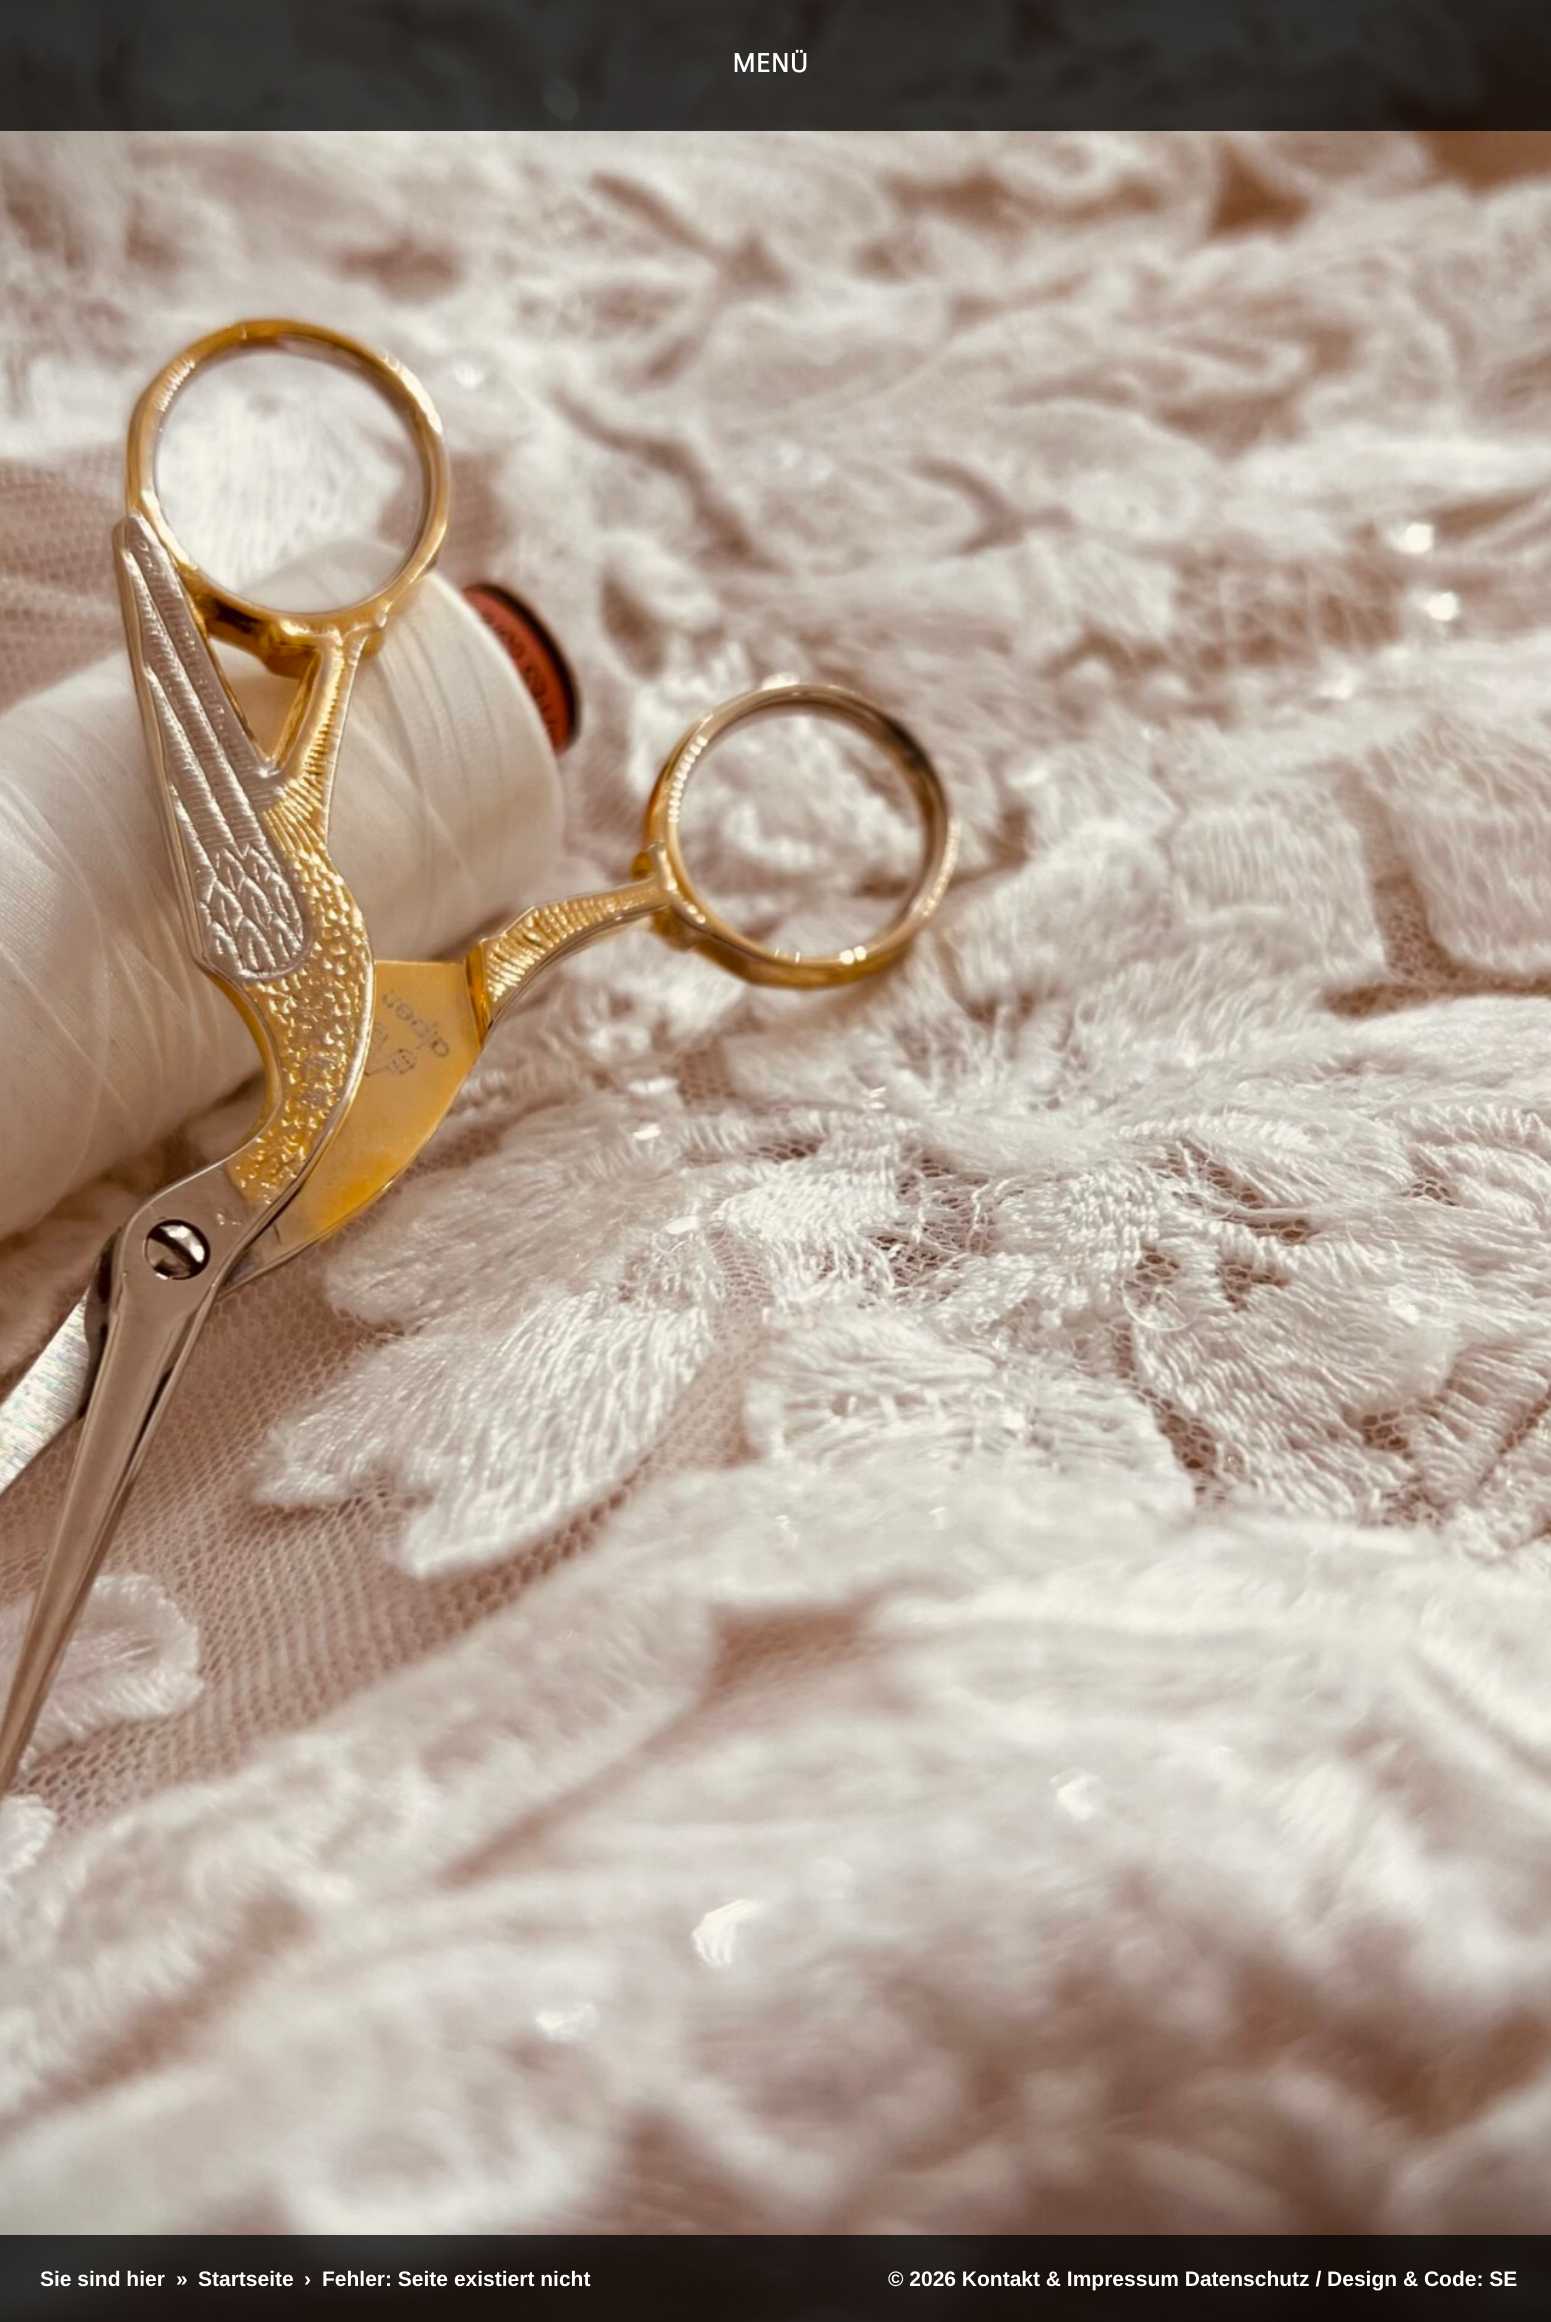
#include <cairo.h>
#include <math.h>
#include <stddef.h>

typedef struct { const char *family; double size; int italic, bold; unsigned color; } style_t;
static cairo_t *ctx;

static void ink(unsigned color) {
    cairo_set_source_rgb(ctx, (color >> 16) / 255.0, (color >> 8 & 255) / 255.0, (color & 255) / 255.0);
}

static void write(double x, double y, const char *s, const style_t *st) {
    cairo_select_font_face(ctx, st->family, st->italic ? CAIRO_FONT_SLANT_ITALIC : CAIRO_FONT_SLANT_NORMAL,
        st->bold ? CAIRO_FONT_WEIGHT_BOLD : CAIRO_FONT_WEIGHT_NORMAL);
    cairo_set_font_size(ctx, st->size);
    ink(st->color);
    cairo_move_to(ctx, x, y);
    cairo_show_text(ctx, s);
}

static void paste(const char *path, double x, double y, double w, double h) {
    cairo_surface_t *image = cairo_image_surface_create_from_png(path);
    cairo_save(ctx);
    cairo_set_source_surface(ctx, image, x, y);
    cairo_rectangle(ctx, x, y, w, h);
    cairo_fill(ctx);
    cairo_restore(ctx);
    cairo_surface_destroy(image);
}

static const style_t s1 = {"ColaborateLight", 28, 0, 1, 0xffffff};
static const style_t s2 = {"Liberation Sans", 21, 0, 1, 0xffffff};

int main(void) {
    cairo_surface_t *surface = cairo_image_surface_create(CAIRO_FORMAT_RGB24, 1551, 2322);
    ctx = cairo_create(surface);
    cairo_font_options_t *options = cairo_font_options_create();
    cairo_font_options_set_hint_metrics(options, CAIRO_HINT_METRICS_OFF);
    cairo_font_options_set_hint_style(options, CAIRO_HINT_STYLE_NONE);
    cairo_set_font_options(ctx, options);
    cairo_set_miter_limit(ctx, 4);
    ink(0xffffff);
    cairo_paint(ctx);
    paste("pic1.png", 0, 0, 1551, 2322);
    cairo_set_source_rgba(ctx, 0, 0, 0, 0.75);
    cairo_rectangle(ctx, 0, 0, 1551, 131);
    cairo_fill(ctx);
    write(732, 72, "MENÜ", &s1);
    cairo_set_source_rgba(ctx, 0, 0, 0, 0.75);
    cairo_rectangle(ctx, 0, 2235, 1551, 87);
    cairo_fill(ctx);
    write(40, 2286, "Sie sind hier", &s2);
    write(176, 2286, "»", &s2);
    write(198, 2286, "Startseite", &s2);
    write(304, 2286, "›", &s2);
    write(322, 2286, "Fehler: Seite existiert nicht", &s2);
    write(888, 2286, "© 2026 Kontakt & Impressum Datenschutz / Design & Code: SE", &s2);
    cairo_surface_write_to_png(surface, "screenshot.png");
    cairo_font_options_destroy(options);
    cairo_destroy(ctx);
    cairo_surface_destroy(surface);
    return 0;
}
